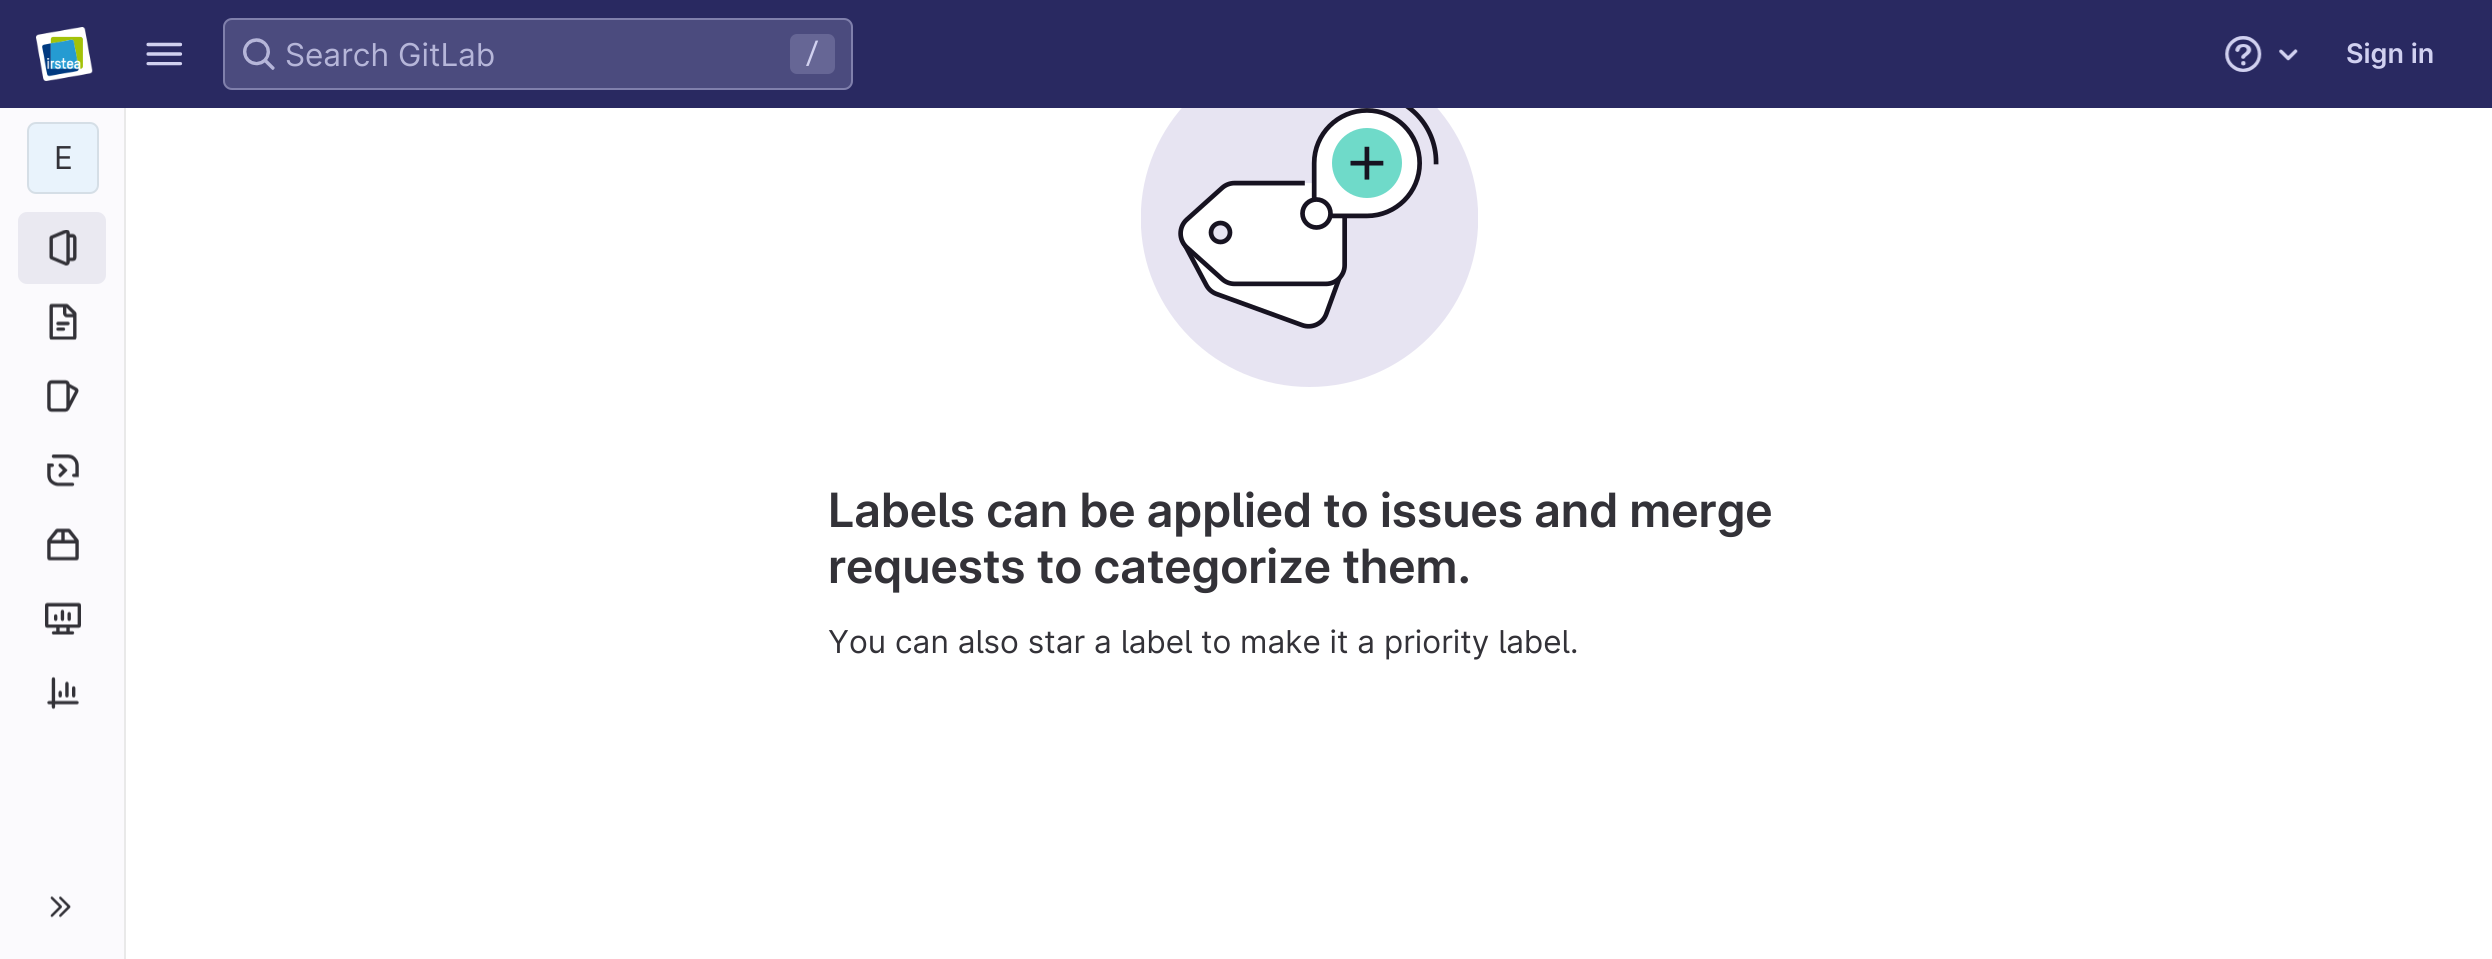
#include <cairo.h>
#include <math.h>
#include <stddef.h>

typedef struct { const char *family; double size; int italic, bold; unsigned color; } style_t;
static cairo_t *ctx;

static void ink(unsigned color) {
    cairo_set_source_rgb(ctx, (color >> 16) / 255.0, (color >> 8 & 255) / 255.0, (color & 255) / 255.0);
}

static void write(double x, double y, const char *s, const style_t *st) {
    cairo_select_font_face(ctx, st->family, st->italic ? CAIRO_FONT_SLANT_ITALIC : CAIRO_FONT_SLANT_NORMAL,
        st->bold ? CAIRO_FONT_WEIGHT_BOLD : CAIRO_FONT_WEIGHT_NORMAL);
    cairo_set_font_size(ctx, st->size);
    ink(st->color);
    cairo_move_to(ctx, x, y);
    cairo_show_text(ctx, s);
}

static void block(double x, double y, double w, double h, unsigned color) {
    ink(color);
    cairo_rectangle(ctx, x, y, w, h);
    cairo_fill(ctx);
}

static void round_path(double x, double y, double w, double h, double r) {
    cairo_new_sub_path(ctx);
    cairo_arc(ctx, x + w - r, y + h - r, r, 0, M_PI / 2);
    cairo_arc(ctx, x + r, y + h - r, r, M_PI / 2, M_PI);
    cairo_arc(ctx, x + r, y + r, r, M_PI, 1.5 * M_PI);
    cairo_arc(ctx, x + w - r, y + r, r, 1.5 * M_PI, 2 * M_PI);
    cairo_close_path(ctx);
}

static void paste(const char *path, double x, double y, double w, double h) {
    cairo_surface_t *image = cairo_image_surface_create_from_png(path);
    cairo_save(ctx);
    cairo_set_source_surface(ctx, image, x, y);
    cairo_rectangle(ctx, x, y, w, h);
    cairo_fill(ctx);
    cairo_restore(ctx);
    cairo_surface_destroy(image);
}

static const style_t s1 = {"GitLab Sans", 31.5, 0, 0, 0xb6b6d9};
static const style_t s2 = {"JetBrains Mono", 27, 0, 0, 0xd1d1f0};
static const style_t s3 = {"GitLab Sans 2 SemiBold", 27, 0, 0, 0xd1d1f0};
static const style_t s4 = {"GitLab Sans", 31.5, 0, 0, 0x333238};
static const style_t s5 = {"GitLab Sans SemiBold", 47.25, 0, 0, 0x333238};

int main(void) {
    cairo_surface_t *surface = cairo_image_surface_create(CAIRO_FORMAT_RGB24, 2492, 959);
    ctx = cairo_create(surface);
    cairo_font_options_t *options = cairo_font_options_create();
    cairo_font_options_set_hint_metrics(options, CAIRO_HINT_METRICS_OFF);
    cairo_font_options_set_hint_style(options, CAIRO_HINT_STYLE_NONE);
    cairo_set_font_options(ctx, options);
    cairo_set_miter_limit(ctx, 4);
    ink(0xffffff);
    cairo_paint(ctx);
    block(0, 0, 2492, 108, 0x292961);
    paste("pic1.png", 36, 27, 57, 54);
    paste("pic2.png", 146, 42, 37, 24);
    ink(0x4b4b7e);
    round_path(223, 18, 630, 72, 9);
    cairo_fill(ctx);
    round_path(224, 19, 628, 70, 8);
    cairo_set_source_rgba(ctx, 0.82, 0.82, 0.941, 0.4);
    cairo_stroke(ctx);
    paste("pic3.png", 243, 38, 32, 32);
    write(285, 66, "Search GitLab", &s1);
    ink(0x666695);
    round_path(790, 34, 45, 40, 7);
    cairo_fill(ctx);
    write(804, 63, "/", &s2);
    paste("pic4.png", 2225, 36, 37, 36);
    paste("pic5.png", 2279, 49, 19, 12);
    write(2346, 63, "Sign in", &s3);
    block(0, 108, 124, 851, 0xfbfafd);
    block(124, 108, 2, 851, 0xe9e9e9);
    ink(0xe9f3fc);
    round_path(27, 122, 72, 72, 9);
    cairo_fill(ctx);
    round_path(28, 123, 70, 70, 8);
    cairo_set_source_rgba(ctx, 0.122, 0.118, 0.141, 0.1);
    cairo_stroke(ctx);
    write(54, 169, "E", &s4);
    ink(0xeae9f1);
    round_path(18, 212, 88, 72, 9);
    cairo_fill(ctx);
    paste("pic6.png", 49, 230, 28, 36);
    paste("pic7.png", 49, 303, 28, 38);
    paste("pic8.png", 47, 379, 32, 34);
    paste("pic9.png", 47, 454, 32, 33);
    paste("pic10.png", 47, 528, 32, 33);
    paste("pic11.png", 45, 602, 36, 33);
    paste("pic12.png", 47, 676, 32, 34);
    paste("pic13.png", 50, 896, 21, 22);
    paste("pic14.png", 1141, 108, 337, 279);
    write(828, 527, "Labels can be applied to issues and merge", &s5);
    write(828, 583, "requests to categorize them.", &s5);
    write(828, 653, "You can also star a label to make it a priority label.", &s4);
    cairo_surface_write_to_png(surface, "screenshot.png");
    cairo_font_options_destroy(options);
    cairo_destroy(ctx);
    cairo_surface_destroy(surface);
    return 0;
}
